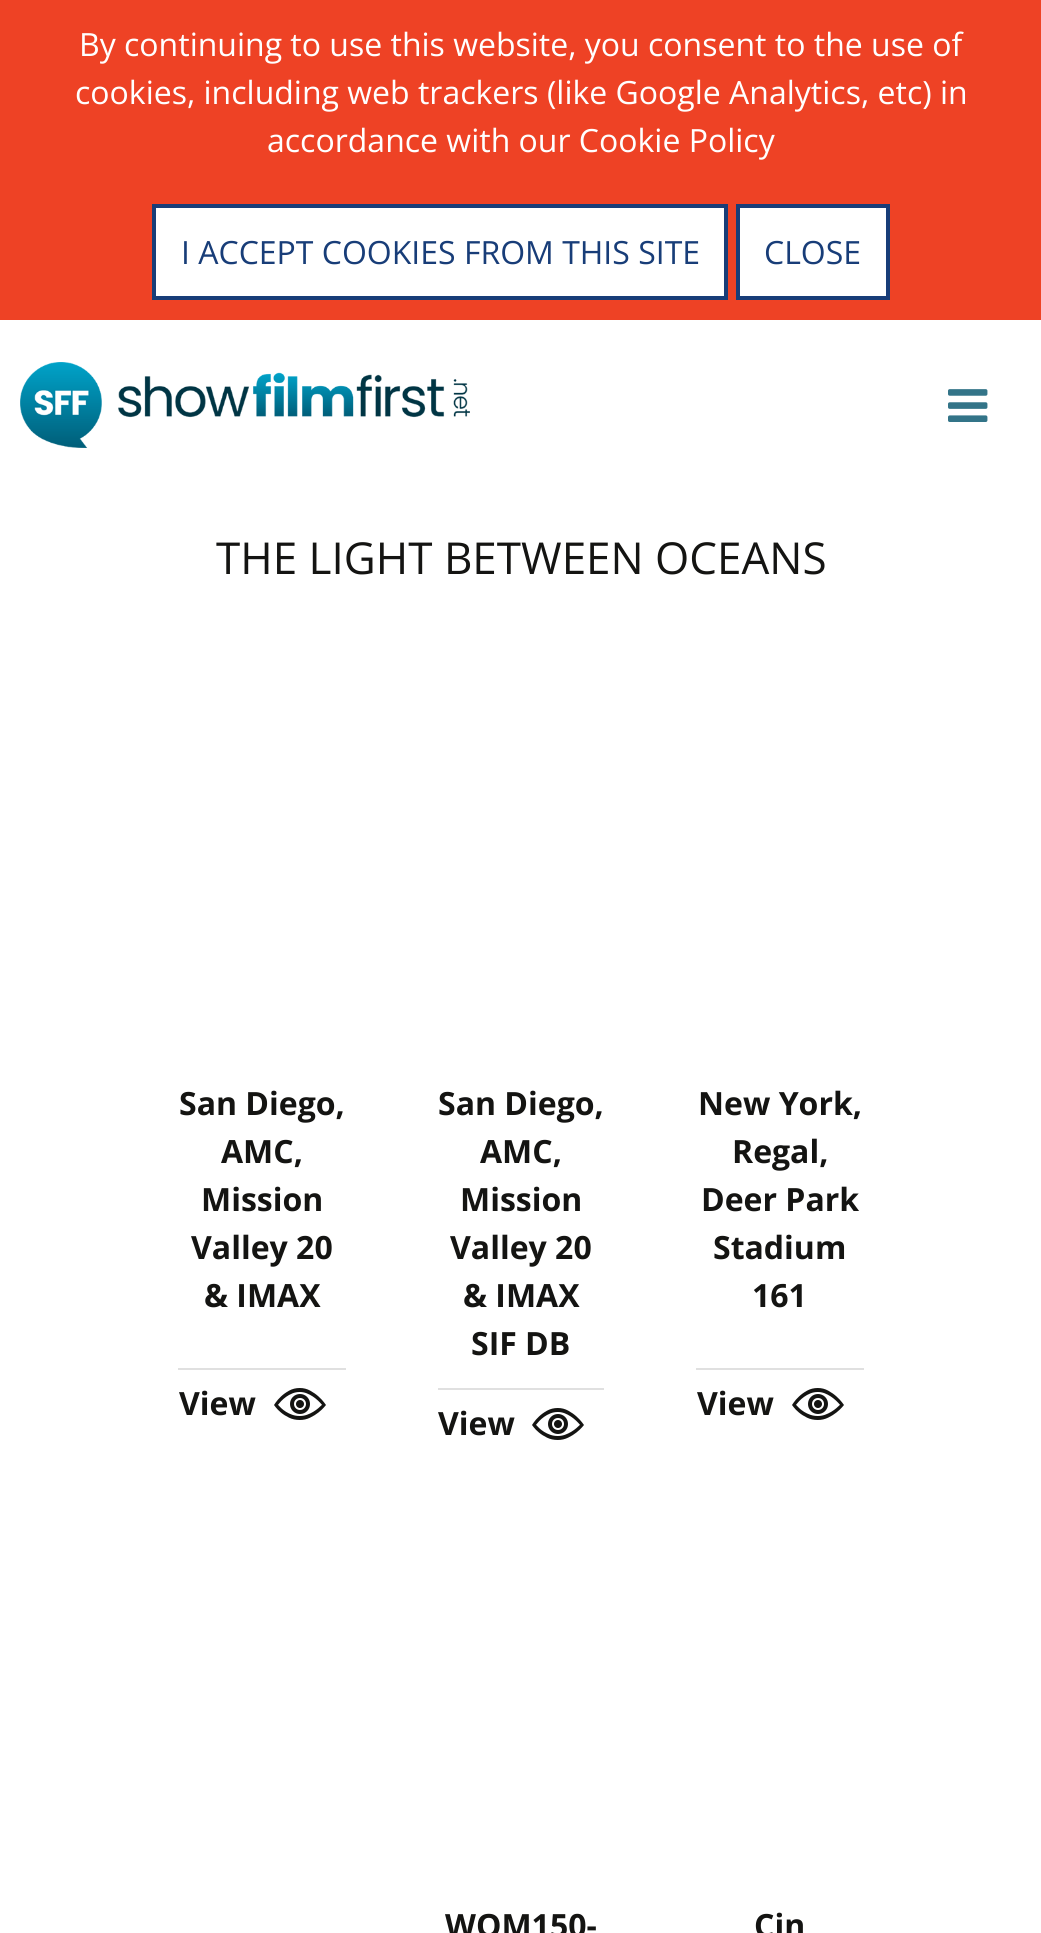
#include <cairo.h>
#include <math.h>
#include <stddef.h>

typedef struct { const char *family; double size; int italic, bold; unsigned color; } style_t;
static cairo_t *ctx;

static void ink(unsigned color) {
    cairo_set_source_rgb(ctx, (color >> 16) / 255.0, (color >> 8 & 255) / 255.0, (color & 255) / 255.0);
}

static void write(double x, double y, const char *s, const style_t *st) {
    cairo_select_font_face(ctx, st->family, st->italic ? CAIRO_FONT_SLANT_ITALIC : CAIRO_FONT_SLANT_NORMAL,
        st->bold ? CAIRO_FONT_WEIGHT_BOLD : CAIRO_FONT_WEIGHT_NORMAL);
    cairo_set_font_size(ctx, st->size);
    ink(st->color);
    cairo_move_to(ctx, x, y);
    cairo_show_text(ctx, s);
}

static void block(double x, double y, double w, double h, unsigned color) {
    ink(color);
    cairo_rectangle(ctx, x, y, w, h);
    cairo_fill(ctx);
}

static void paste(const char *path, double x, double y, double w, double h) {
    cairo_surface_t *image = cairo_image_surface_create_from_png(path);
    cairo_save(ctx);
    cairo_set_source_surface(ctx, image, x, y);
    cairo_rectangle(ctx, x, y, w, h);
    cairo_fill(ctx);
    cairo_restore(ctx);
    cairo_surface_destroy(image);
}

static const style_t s1 = {"Open Sans", 32, 0, 0, 0xffffff};
static const style_t s2 = {"Open Sans", 32, 0, 0, 0x183d78};
static const style_t s3 = {"Open Sans", 44, 0, 0, 0x141412};
static const style_t s4 = {"Open Sans", 32, 0, 1, 0x141412};

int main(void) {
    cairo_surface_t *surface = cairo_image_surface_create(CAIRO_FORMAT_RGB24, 1041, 1933);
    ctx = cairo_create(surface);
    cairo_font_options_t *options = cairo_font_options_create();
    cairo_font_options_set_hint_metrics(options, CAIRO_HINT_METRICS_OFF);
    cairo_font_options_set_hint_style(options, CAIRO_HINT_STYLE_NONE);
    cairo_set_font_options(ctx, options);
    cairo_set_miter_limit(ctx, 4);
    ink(0xffffff);
    cairo_paint(ctx);
    block(0, 0, 1041, 320, 0xee4225);
    write(79, 56, "By continuing to use this website, you consent to the use of", &s1);
    write(75, 104, "cookies, including web trackers (like Google Analytics, etc) in", &s1);
    write(267, 152, "accordance with our Cookie Policy", &s1);
    cairo_rectangle(ctx, 154, 206, 572, 92);
    cairo_fill_preserve(ctx);
    ink(0x183d78);
    cairo_set_line_width(ctx, 4);
    cairo_stroke(ctx);
    write(181, 264, "I ACCEPT COOKIES FROM THIS SITE", &s2);
    ink(0xffffff);
    cairo_rectangle(ctx, 738, 206, 150, 92);
    cairo_fill_preserve(ctx);
    ink(0x183d78);
    cairo_stroke(ctx);
    write(764, 264, "CLOSE", &s2);
    paste("pic1.png", 20, 362, 450, 86);
    paste("pic2.png", 948, 389, 40, 33);
    write(216, 574, "THE LIGHT BETWEEN OCEANS", &s3);
    write(179, 1115, "San Diego,", &s4);
    write(221, 1163, "AMC,", &s4);
    write(201, 1211, "Mission", &s4);
    write(191, 1259, "Valley 20", &s4);
    write(204, 1307, "& IMAX", &s4);
    block(178, 1368, 168, 2, 0xe0e0e0);
    write(179, 1415, "View", &s4);
    paste("pic3.png", 274, 1388, 52, 32);
    write(438, 1115, "San Diego,", &s4);
    write(480, 1163, "AMC,", &s4);
    write(460, 1211, "Mission", &s4);
    write(450, 1259, "Valley 20", &s4);
    write(463, 1307, "& IMAX", &s4);
    write(471, 1355, "SIF DB", &s4);
    block(438, 1388, 166, 2, 0xe0e0e0);
    write(438, 1435, "View", &s4);
    paste("pic3.png", 532, 1408, 52, 32);
    write(698, 1115, "New York,", &s4);
    write(732, 1163, "Regal,", &s4);
    write(701, 1211, "Deer Park", &s4);
    write(713, 1259, "Stadium", &s4);
    write(752, 1307, "161", &s4);
    block(696, 1368, 168, 2, 0xe0e0e0);
    write(697, 1415, "View", &s4);
    paste("pic3.png", 792, 1388, 52, 32);
    write(445, 1937, "WOM150-", &s4);
    write(754, 1937, "Cin", &s4);
    cairo_surface_write_to_png(surface, "screenshot.png");
    cairo_font_options_destroy(options);
    cairo_destroy(ctx);
    cairo_surface_destroy(surface);
    return 0;
}
